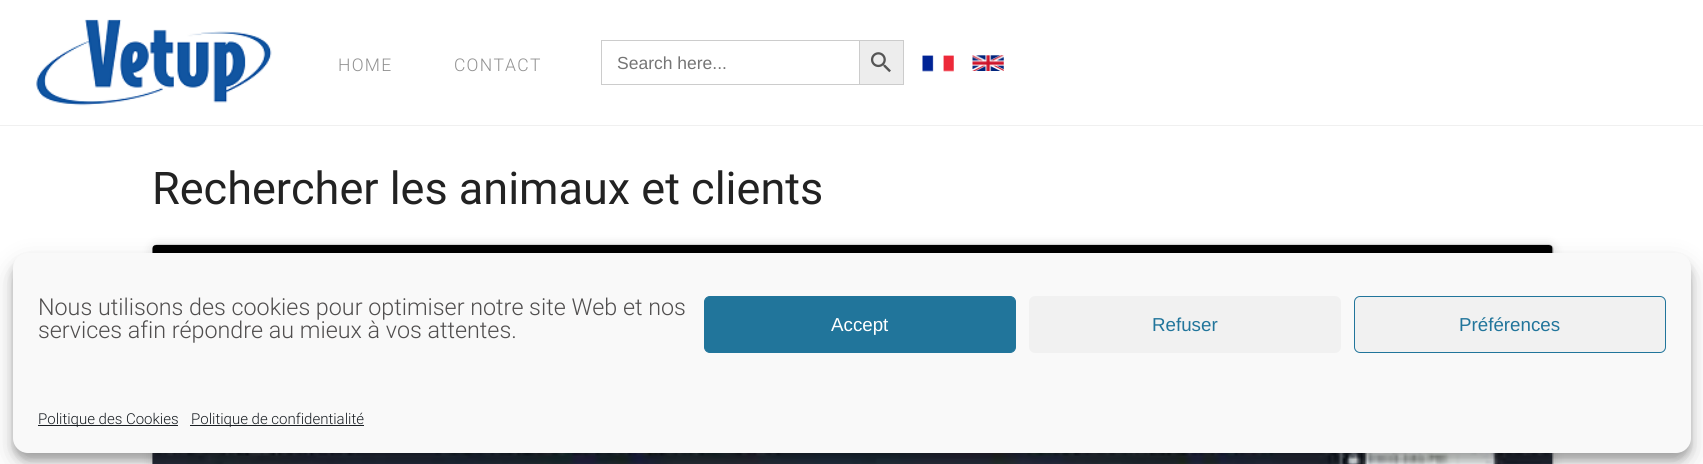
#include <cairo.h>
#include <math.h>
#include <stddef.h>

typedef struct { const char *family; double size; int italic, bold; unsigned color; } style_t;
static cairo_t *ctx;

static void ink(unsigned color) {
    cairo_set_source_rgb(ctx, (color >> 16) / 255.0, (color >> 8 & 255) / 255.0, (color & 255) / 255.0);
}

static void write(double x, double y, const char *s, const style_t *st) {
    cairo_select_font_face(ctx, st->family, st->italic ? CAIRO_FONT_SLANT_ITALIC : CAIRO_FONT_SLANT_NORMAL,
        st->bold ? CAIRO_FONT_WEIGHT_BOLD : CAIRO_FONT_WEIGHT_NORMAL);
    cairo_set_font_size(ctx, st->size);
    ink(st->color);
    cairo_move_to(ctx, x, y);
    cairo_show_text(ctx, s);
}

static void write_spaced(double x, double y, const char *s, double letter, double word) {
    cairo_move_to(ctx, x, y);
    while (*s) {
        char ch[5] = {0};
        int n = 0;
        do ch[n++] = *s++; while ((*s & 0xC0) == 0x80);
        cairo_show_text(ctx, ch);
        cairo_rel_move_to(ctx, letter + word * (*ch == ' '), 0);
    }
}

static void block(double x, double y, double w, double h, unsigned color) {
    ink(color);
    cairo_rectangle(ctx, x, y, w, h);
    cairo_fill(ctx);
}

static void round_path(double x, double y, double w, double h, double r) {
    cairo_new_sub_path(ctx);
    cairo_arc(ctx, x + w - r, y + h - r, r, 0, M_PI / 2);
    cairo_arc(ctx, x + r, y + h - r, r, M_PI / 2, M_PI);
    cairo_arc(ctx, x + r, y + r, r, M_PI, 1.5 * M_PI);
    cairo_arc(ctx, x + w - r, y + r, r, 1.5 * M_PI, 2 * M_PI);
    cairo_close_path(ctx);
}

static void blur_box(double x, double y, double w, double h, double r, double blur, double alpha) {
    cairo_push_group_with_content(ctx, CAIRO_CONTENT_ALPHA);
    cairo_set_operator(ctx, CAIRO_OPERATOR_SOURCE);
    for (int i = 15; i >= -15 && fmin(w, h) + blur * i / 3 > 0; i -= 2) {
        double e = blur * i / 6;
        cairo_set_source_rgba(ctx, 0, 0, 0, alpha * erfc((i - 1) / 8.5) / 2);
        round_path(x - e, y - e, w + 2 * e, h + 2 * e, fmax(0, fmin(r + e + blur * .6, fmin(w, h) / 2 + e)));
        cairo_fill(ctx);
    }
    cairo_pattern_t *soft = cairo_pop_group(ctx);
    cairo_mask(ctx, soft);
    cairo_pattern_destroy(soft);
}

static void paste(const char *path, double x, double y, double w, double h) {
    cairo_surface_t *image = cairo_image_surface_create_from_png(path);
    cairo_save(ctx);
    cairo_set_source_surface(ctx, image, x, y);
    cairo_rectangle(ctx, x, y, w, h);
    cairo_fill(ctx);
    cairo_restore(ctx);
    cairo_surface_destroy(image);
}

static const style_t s1 = {"Liberation Sans", 17.5, 0, 0, 0x757575};
static const style_t s2 = {"Roboto", 45, 0, 0, 0x222222};
static const style_t s3 = {"Roboto Light", 23.3, 0, 0, 0x504e4e};
static const style_t s4 = {"Liberation Sans", 18.75, 0, 0, 0xffffff};
static const style_t s5 = {"Liberation Sans", 18.75, 0, 0, 0x21759b};
static const style_t s6 = {"Roboto Light", 15, 0, 0, 0x191e23};

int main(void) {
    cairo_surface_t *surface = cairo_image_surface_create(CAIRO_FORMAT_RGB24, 1703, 464);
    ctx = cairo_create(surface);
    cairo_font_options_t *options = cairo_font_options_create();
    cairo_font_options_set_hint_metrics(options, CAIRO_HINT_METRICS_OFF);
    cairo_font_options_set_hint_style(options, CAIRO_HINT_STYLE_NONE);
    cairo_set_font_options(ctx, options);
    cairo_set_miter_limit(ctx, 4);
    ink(0xffffff);
    cairo_paint(ctx);
    block(0, 125, 1703, 1, 0xf0f0f0);
    paste("pic1.png", 36, 19, 236, 87);
    cairo_select_font_face(ctx, "Roboto Light", CAIRO_FONT_SLANT_NORMAL, CAIRO_FONT_WEIGHT_NORMAL);
    cairo_set_font_size(ctx, 17.5);
    ink(0x919191);
    write_spaced(338, 71, "HOME", 1.25, 0);
    write_spaced(454, 71, "CONTACT", 1.25, 0);
    block(601, 40, 258, 1, 0xcccccc);
    block(601, 84, 258, 1, 0xcccccc);
    block(601, 40, 1, 45, 0xcccccc);
    write(617, 69, "Search here...", &s1);
    ink(0xededed);
    cairo_rectangle(ctx, 859.5, 40.5, 44, 44);
    cairo_fill_preserve(ctx);
    ink(0xcccccc);
    cairo_set_line_width(ctx, 1);
    cairo_stroke(ctx);
    paste("pic2.png", 870, 52, 21, 21);
    paste("pic3.png", 922, 55, 32, 17);
    paste("pic4.png", 972, 55, 32, 16);
    write(152, 204, "Rechercher les animaux et clients", &s2);
    ink(0x000000);
    blur_box(153, 246, 1400, 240, 4, 6, 0.15);
    blur_box(153, 245, 1400, 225, 4, 0.5, 0.5);
    ink(0xffffff);
    round_path(153, 245, 1400, 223, 4);
    cairo_fill(ctx);
    paste("pic5.png", 152, 245, 1401, 219);
    ink(0x000000);
    blur_box(13, 260, 1678, 200, 15, 4, 0.23);
    blur_box(13, 265, 1678, 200, 15, 12.5, 0.19);
    ink(0xf9f9f9);
    round_path(13, 253, 1678, 200, 15);
    cairo_fill(ctx);
    write(38, 315, "Nous utilisons des cookies pour optimiser notre site Web et nos", &s3);
    write(38, 338, "services afin répondre au mieux à vos attentes.", &s3);
    ink(0x21759b);
    round_path(704.5, 296.5, 311, 56, 5.5);
    cairo_fill_preserve(ctx);
    cairo_stroke(ctx);
    write(831, 331, "Accept", &s4);
    ink(0xf1f1f1);
    round_path(1029, 296, 312, 57, 6);
    cairo_fill(ctx);
    write(1152, 331, "Refuser", &s5);
    ink(0xf1f1f1);
    round_path(1354.5, 296.5, 311, 56, 5.5);
    cairo_fill_preserve(ctx);
    ink(0x21759b);
    cairo_stroke(ctx);
    write(1459, 331, "Préférences", &s5);
    block(38, 425, 140, 1, 0x191e23);
    write(38, 424, "Politique des Cookies", &s6);
    block(190, 425, 174, 1, 0x191e23);
    write(191, 424, "Politique de confidentialité", &s6);
    cairo_surface_write_to_png(surface, "screenshot.png");
    cairo_font_options_destroy(options);
    cairo_destroy(ctx);
    cairo_surface_destroy(surface);
    return 0;
}
